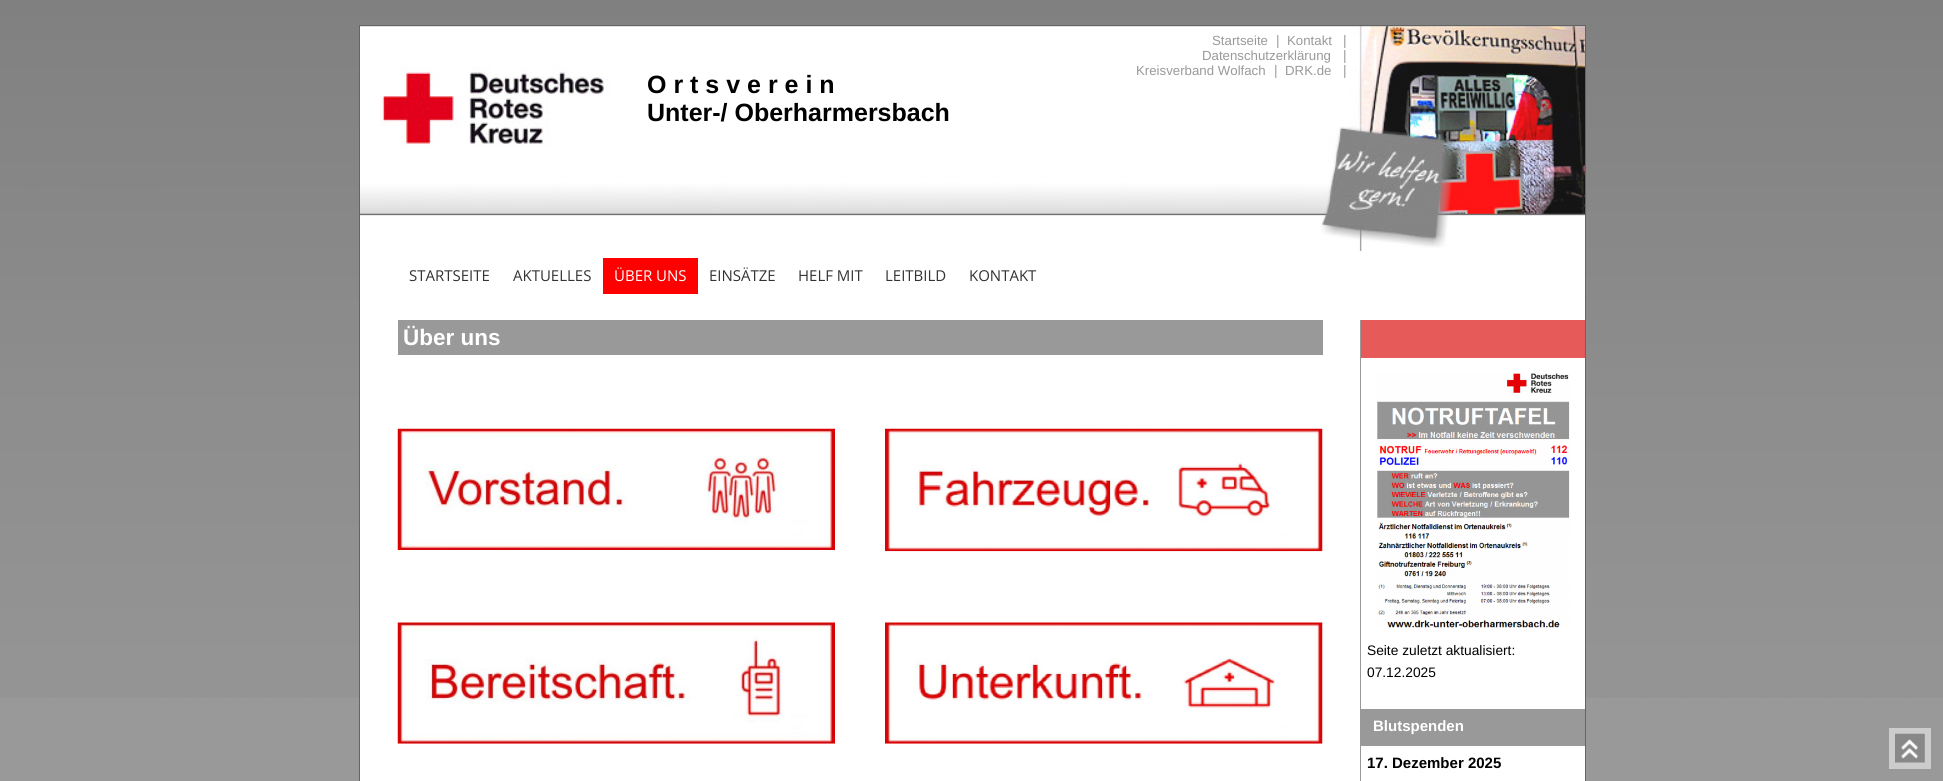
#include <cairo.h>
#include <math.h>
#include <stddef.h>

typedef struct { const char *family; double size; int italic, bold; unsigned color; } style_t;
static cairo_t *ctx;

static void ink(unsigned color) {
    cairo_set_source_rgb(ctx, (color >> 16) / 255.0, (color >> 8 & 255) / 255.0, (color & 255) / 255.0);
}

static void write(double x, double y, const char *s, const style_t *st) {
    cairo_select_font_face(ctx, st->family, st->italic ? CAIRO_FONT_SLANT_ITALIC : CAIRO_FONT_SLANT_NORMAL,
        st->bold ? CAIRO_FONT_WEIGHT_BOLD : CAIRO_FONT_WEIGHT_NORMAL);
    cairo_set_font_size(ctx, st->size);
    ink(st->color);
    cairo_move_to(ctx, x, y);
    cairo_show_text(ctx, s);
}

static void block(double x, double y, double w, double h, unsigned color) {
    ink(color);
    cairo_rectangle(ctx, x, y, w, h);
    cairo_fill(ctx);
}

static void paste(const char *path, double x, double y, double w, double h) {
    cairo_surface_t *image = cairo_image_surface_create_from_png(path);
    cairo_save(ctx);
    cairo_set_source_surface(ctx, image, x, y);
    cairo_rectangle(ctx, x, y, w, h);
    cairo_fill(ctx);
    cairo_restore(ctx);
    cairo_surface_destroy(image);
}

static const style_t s1 = {"Liberation Sans", 13.25, 0, 0, 0x999999};
static const style_t s2 = {"Liberation Sans", 13.75, 0, 0, 0x999999};
static const style_t s3 = {"Liberation Sans", 25, 0, 1, 0x000000};
static const style_t s4 = {"Open Sans", 15, 0, 0, 0x333333};
static const style_t s5 = {"Open Sans", 15, 0, 0, 0xffffff};
static const style_t s6 = {"Liberation Sans", 22.5, 0, 1, 0xffffff};
static const style_t s7 = {"Liberation Sans", 13.75, 0, 0, 0x000000};
static const style_t s8 = {"Liberation Sans", 15, 0, 1, 0xffffff};
static const style_t s9 = {"Liberation Sans", 15, 0, 1, 0x000000};

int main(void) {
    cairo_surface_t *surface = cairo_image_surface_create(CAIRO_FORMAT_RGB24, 1943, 781);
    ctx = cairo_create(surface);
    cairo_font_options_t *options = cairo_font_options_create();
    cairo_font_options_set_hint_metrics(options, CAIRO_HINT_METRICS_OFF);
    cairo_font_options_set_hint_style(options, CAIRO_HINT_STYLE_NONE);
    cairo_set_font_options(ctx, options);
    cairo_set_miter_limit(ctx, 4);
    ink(0x999999);
    cairo_paint(ctx);
    paste("pic1.png", 0, 0, 1943, 698);
    cairo_rectangle(ctx, 359.5, 25.5, 1226, 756);
    ink(0x646464);
    cairo_set_line_width(ctx, 1);
    cairo_stroke(ctx);
    paste("pic2.png", 360, 26, 1225, 225);
    write(1212, 45, "Startseite", &s1);
    write(1276, 45, "|", &s2);
    write(1287, 45, "Kontakt", &s1);
    write(1343, 45, "|", &s2);
    write(1202, 60, "Datenschutzerklärung", &s1);
    write(1343, 60, "|", &s2);
    write(1136, 75, "Kreisverband Wolfach", &s1);
    write(1274, 75, "|", &s2);
    write(1285, 75, "DRK.de", &s1);
    write(1343, 75, "|", &s2);
    write(647, 93, "O r t s v e r e i n", &s3);
    write(647, 121, "Unter-/ Oberharmersbach", &s3);
    block(360, 251, 1225, 530, 0xffffff);
    write(409, 281, "STARTSEITE", &s4);
    write(513, 281, "AKTUELLES", &s4);
    block(603, 258, 95, 36, 0xff0000);
    write(614, 281, "ÜBER UNS", &s5);
    write(709, 281, "EINSÄTZE", &s4);
    write(798, 281, "HELF MIT", &s4);
    write(885, 281, "LEITBILD", &s4);
    write(969, 281, "KONTAKT", &s4);
    block(398, 320, 925, 35, 0x999999);
    write(403, 345, "Über uns", &s6);
    paste("pic3.png", 397, 428, 438, 122);
    paste("pic4.png", 885, 428, 438, 124);
    paste("pic5.png", 397, 622, 438, 122);
    paste("pic6.png", 885, 622, 438, 122);
    block(1360, 320, 1, 461, 0x999999);
    block(1361, 320, 224, 38, 0xe65a5a);
    paste("pic7.png", 1377, 373, 193, 255);
    write(1367, 655, "Seite zuletzt aktualisiert:", &s7);
    write(1367, 677, "07.12.2025", &s7);
    block(1361, 709, 224, 37, 0x999999);
    write(1373, 731, "Blutspenden", &s8);
    write(1367, 768, "17. Dezember 2025", &s9);
    block(1889, 728, 42, 41, 0xcccccc);
    paste("pic8.png", 1895, 733, 30, 30);
    cairo_surface_write_to_png(surface, "screenshot.png");
    cairo_font_options_destroy(options);
    cairo_destroy(ctx);
    cairo_surface_destroy(surface);
    return 0;
}
